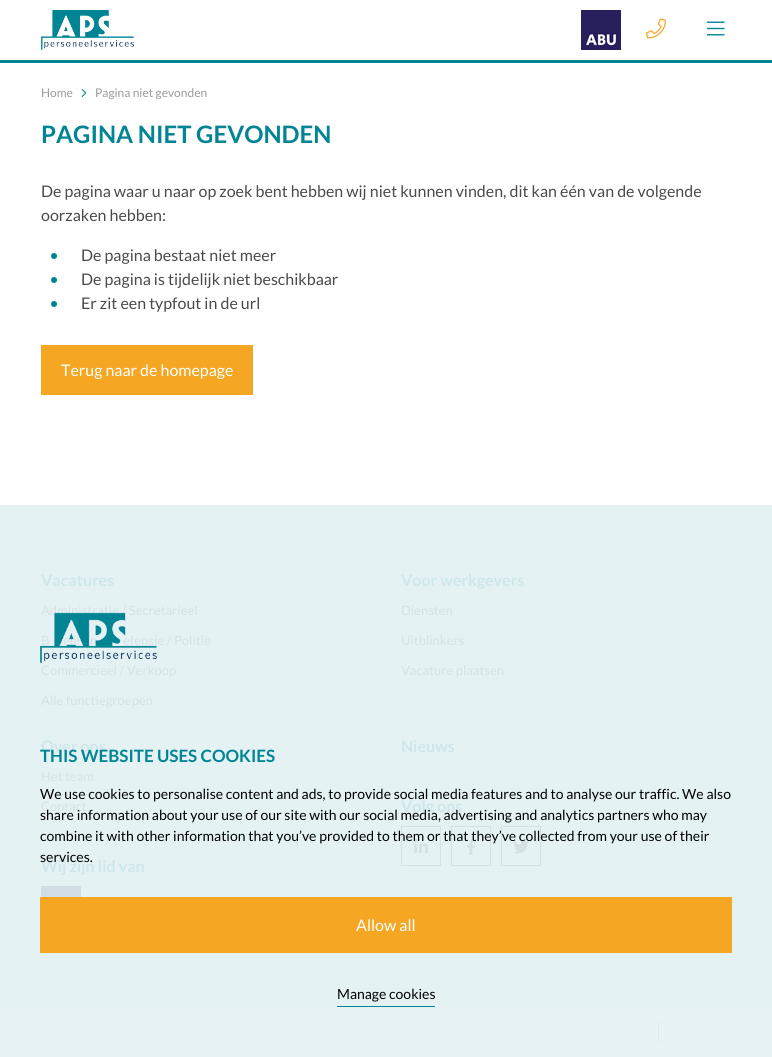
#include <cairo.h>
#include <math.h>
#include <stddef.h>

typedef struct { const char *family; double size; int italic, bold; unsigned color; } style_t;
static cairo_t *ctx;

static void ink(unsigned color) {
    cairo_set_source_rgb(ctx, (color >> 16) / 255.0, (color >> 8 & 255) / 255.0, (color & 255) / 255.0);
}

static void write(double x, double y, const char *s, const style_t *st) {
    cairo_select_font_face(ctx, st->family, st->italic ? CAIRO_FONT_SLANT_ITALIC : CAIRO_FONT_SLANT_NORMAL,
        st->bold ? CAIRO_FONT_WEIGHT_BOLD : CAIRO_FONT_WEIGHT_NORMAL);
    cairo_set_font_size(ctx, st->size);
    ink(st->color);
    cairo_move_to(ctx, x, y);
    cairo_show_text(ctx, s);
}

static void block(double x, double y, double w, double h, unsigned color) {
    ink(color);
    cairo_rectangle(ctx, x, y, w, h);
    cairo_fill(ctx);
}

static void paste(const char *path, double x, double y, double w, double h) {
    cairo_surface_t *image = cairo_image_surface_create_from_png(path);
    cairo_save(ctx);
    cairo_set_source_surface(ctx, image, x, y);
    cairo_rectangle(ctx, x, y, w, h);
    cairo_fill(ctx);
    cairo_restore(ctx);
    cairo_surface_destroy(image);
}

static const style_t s1 = {"Lato", 12, 0, 0, 0x9b9b9b};
static const style_t s2 = {"Lato", 24, 0, 1, 0x018493};
static const style_t s3 = {"Lato", 16, 0, 0, 0x4a4a4a};
static const style_t s4 = {"Lato", 16, 0, 0, 0xffffff};
static const style_t s5 = {"Lato", 16, 0, 1, 0xcee7ea};
static const style_t s6 = {"Lato", 13, 0, 0, 0xd6e1e3};
static const style_t s7 = {"Lato", 17, 0, 1, 0x018493};
static const style_t s8 = {"Lato", 14, 0, 0, 0x000000};

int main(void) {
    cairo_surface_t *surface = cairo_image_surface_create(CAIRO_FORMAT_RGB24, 772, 1057);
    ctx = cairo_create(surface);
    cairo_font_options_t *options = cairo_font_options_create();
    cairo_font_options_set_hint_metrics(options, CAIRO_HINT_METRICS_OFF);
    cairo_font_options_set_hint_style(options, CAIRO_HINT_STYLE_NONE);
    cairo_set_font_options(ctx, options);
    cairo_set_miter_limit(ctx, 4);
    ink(0xffffff);
    cairo_paint(ctx);
    block(0, 1007, 772, 50, 0xe8f3f5);
    paste("pic1.png", 41, 10, 93, 40);
    paste("pic2.png", 581, 10, 40, 40);
    paste("pic3.png", 646, 18, 20, 21);
    paste("pic4.png", 707, 21, 18, 15);
    block(0, 60, 772, 3, 0x018493);
    write(41, 97, "Home", &s1);
    paste("pic5.png", 81, 89, 6, 8);
    write(95, 97, "Pagina niet gevonden", &s1);
    write(41, 143, "PAGINA NIET GEVONDEN", &s2);
    write(41, 197, "De pagina waar u naar op zoek bent hebben wij niet kunnen vinden, dit kan één van de volgende", &s3);
    write(41, 221, "oorzaken hebben:", &s3);
    ink(0x018493);
    cairo_new_path(ctx);
    cairo_arc(ctx, 54, 256, 3, 0, 2 * M_PI);
    cairo_fill(ctx);
    write(81, 261, "De pagina bestaat niet meer", &s3);
    ink(0x018493);
    cairo_new_path(ctx);
    cairo_arc(ctx, 54, 280, 3, 0, 2 * M_PI);
    cairo_fill(ctx);
    write(81, 285, "De pagina is tijdelijk niet beschikbaar", &s3);
    ink(0x018493);
    cairo_new_path(ctx);
    cairo_arc(ctx, 54, 304, 3, 0, 2 * M_PI);
    cairo_fill(ctx);
    write(81, 309, "Er zit een typfout in de url", &s3);
    block(41, 345, 212, 50, 0xf5a623);
    write(61, 376, "Terug naar de homepage", &s4);
    block(0, 505, 772, 502, 0xe5f2f4);
    write(41, 586, "Vacatures", &s5);
    write(41, 615, "Administratie / Secretarieel", &s6);
    write(41, 645, "B", &s6);
    write(63, 645, "eili", &s6);
    write(90, 645, "n", &s6);
    write(123, 645, "efensie / Politie", &s6);
    write(41, 675, "Commercieel / Verkoop", &s6);
    write(41, 705, "Alle functiegroepen", &s6);
    write(401, 586, "Voor werkgevers", &s5);
    write(401, 615, "Diensten", &s6);
    write(401, 645, "Uitblinkers", &s6);
    write(401, 675, "Vacature plaatsen", &s6);
    write(41, 752, "Over ons", &s5);
    write(41, 781, "Het team", &s6);
    write(41, 811, "Contact", &s6);
    write(41, 872, "Wij zijn lid van", &s5);
    paste("pic6.png", 41, 886, 40, 11);
    write(401, 752, "Nieuws", &s5);
    write(401, 812, "Volg ons", &s5);
    cairo_rectangle(ctx, 401.5, 826.5, 39, 39);
    ink(0xd6e1e3);
    cairo_set_line_width(ctx, 1);
    cairo_stroke(ctx);
    paste("pic7.png", 414, 839, 14, 14);
    cairo_rectangle(ctx, 451.5, 826.5, 39, 39);
    cairo_stroke(ctx);
    paste("pic8.png", 467, 839, 9, 16);
    cairo_rectangle(ctx, 501.5, 826.5, 39, 39);
    cairo_stroke(ctx);
    paste("pic9.png", 513, 840, 16, 14);
    block(658, 1022, 1, 20, 0xdee9eb);
    paste("pic10.png", 40, 612, 117, 51);
    write(40, 762, "THIS WEBSITE USES COOKIES", &s7);
    write(40, 799, "We use cookies to personalise content and ads, to provide social media features and to analyse our traffic. We also", &s8);
    write(40, 820, "share information about your use of our site with our social media, advertising and analytics partners who may", &s8);
    write(40, 841, "combine it with other information that you’ve provided to them or that they’ve collected from your use of their", &s8);
    write(40, 862, "services.", &s8);
    block(40, 897, 692, 56, 0xf5a623);
    write(356, 931, "Allow all", &s4);
    block(337, 1006, 98, 1, 0x018493);
    write(337, 999, "Manage cookies", &s8);
    cairo_surface_write_to_png(surface, "screenshot.png");
    cairo_font_options_destroy(options);
    cairo_destroy(ctx);
    cairo_surface_destroy(surface);
    return 0;
}
